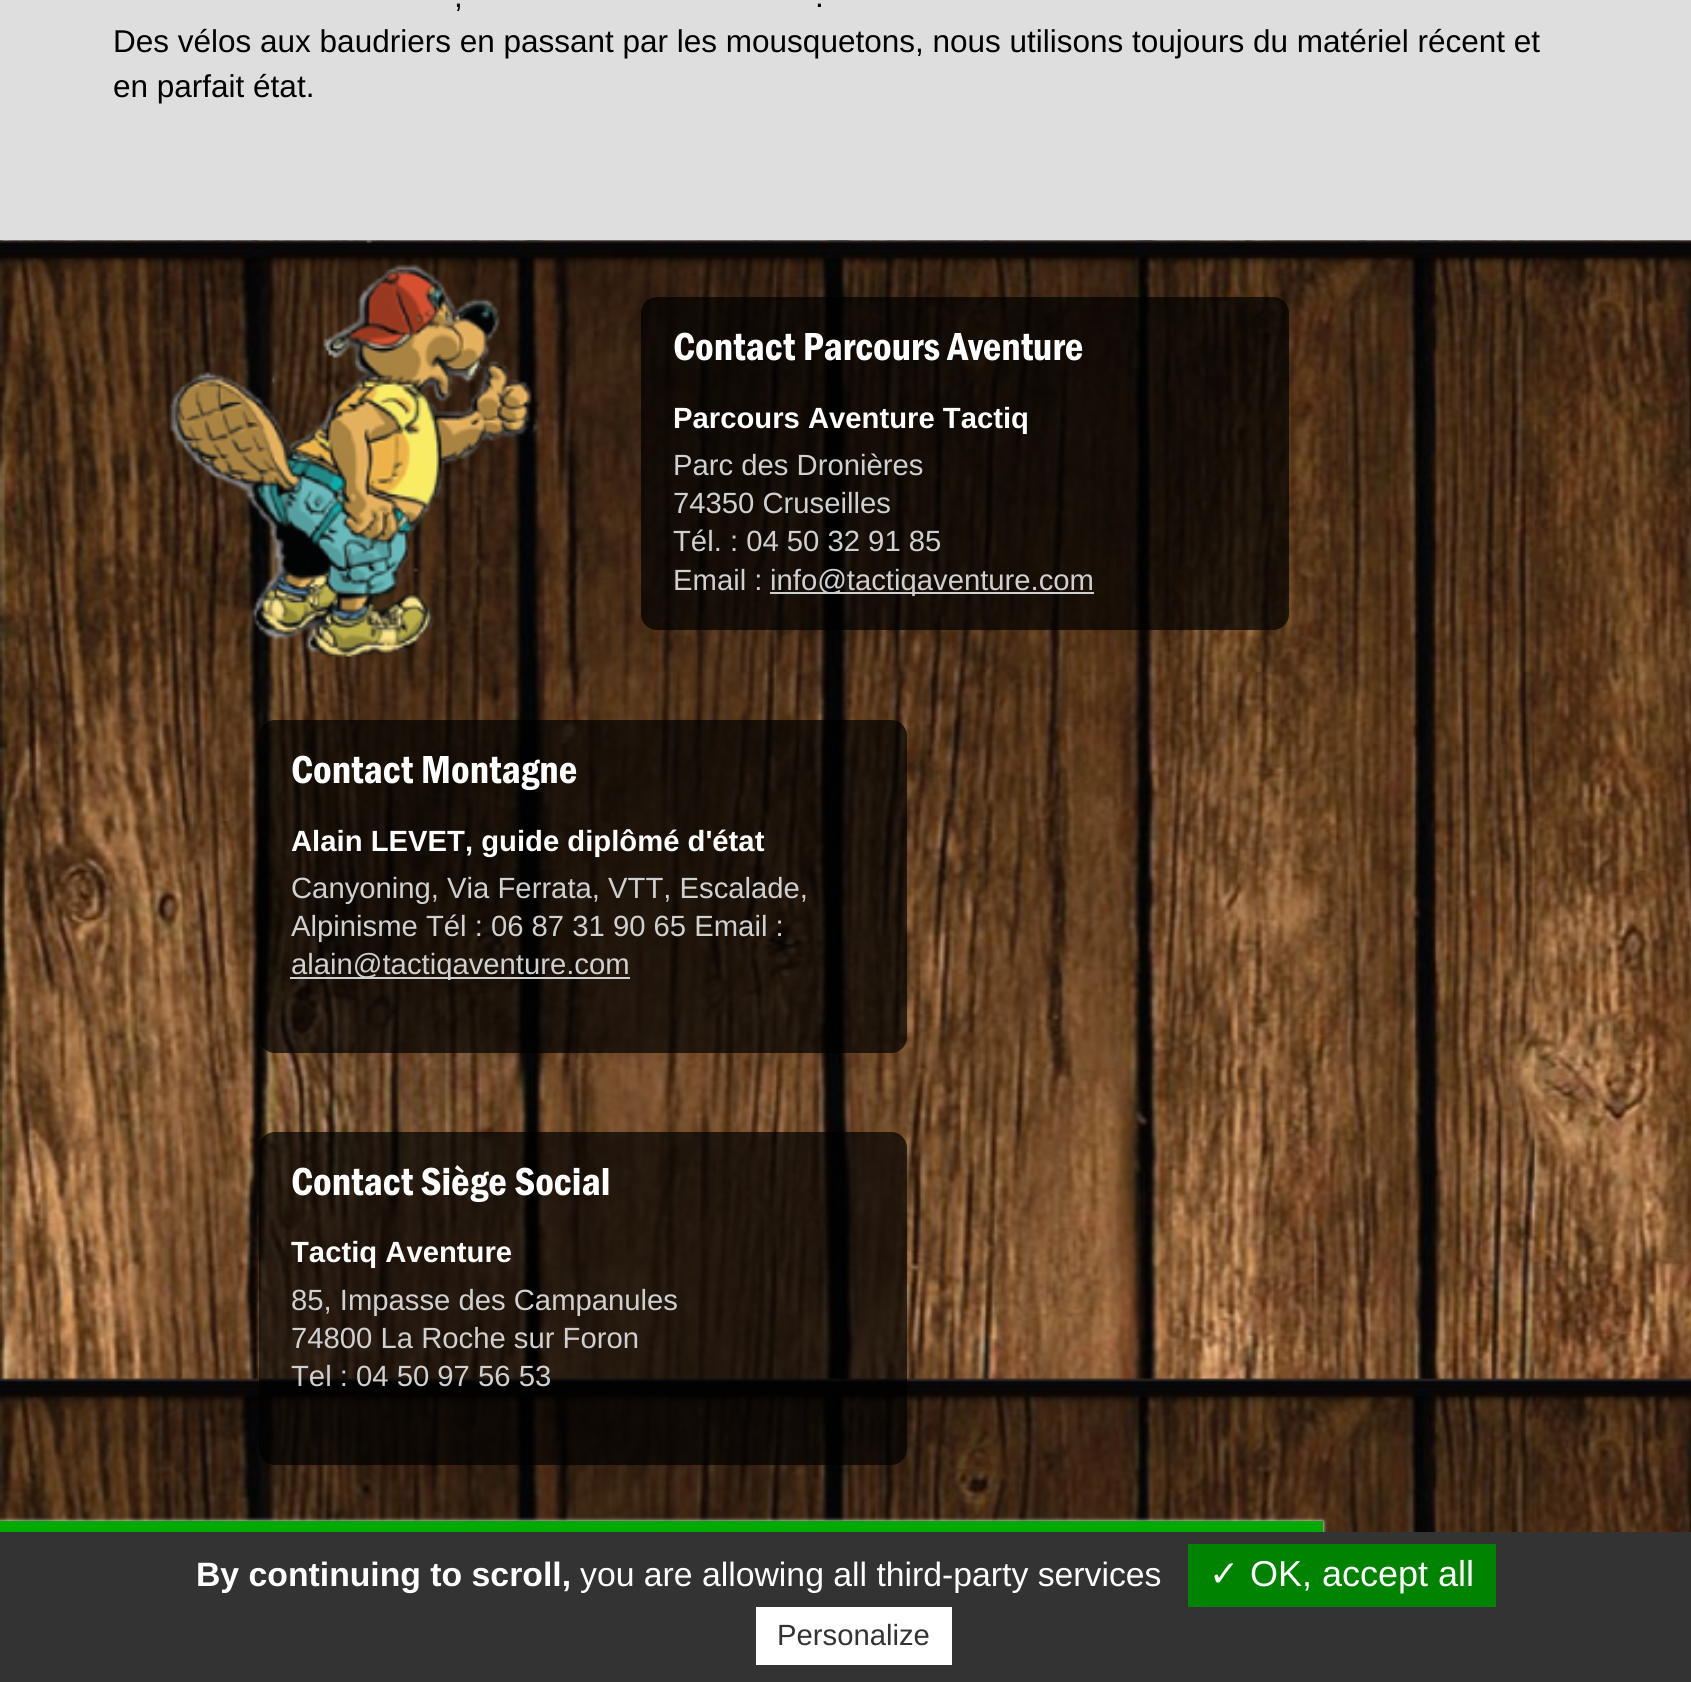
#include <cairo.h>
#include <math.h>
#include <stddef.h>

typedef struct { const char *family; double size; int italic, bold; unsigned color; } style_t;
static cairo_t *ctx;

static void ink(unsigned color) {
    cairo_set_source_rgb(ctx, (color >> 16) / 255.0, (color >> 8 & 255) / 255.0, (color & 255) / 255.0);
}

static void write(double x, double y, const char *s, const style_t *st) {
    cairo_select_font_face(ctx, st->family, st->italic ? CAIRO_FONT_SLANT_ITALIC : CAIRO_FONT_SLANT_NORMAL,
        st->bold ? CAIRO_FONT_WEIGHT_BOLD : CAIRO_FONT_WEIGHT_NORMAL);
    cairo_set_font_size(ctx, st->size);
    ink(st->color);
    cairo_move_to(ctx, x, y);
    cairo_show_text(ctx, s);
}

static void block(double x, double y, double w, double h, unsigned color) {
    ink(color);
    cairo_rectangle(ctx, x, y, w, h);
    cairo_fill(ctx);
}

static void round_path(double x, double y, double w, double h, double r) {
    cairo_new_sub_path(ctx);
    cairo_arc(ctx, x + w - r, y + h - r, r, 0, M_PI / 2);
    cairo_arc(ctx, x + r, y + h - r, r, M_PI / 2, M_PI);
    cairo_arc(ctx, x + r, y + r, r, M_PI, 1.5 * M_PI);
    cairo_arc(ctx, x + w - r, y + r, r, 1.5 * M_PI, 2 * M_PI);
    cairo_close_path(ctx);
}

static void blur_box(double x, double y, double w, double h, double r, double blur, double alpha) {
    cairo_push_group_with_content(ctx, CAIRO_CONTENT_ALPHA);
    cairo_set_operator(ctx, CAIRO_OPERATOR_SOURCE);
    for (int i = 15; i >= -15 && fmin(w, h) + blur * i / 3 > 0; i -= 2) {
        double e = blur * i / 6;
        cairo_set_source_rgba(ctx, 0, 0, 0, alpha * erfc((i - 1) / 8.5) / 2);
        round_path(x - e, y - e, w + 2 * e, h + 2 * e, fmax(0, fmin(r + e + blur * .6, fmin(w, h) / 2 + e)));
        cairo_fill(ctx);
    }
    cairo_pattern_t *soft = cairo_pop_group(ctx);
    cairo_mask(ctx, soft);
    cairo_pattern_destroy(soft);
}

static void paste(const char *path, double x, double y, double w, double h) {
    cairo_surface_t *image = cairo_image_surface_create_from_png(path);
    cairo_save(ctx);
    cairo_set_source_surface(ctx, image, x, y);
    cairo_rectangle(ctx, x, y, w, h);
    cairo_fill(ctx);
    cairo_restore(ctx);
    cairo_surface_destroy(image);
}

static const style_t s1 = {"Liberation Sans", 31.5, 0, 0, 0x000000};
static const style_t s2 = {"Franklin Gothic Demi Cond", 40.5, 0, 0, 0xffffff};
static const style_t s3 = {"Liberation Sans", 29.25, 0, 1, 0xffffff};
static const style_t s4 = {"Liberation Sans", 29.25, 0, 0, 0xd0d0d0};
static const style_t s5 = {"Liberation Sans", 33.75, 0, 1, 0xffffff};
static const style_t s6 = {"Liberation Sans", 33.75, 0, 0, 0xffffff};
static const style_t s7 = {"DejaVu Sans", 36, 0, 0, 0xffffff};
static const style_t s8 = {"Liberation Sans", 36, 0, 0, 0xffffff};
static const style_t s9 = {"Liberation Sans", 29.25, 0, 0, 0x333333};

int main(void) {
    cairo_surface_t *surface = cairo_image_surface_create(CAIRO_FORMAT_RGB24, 1691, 1682);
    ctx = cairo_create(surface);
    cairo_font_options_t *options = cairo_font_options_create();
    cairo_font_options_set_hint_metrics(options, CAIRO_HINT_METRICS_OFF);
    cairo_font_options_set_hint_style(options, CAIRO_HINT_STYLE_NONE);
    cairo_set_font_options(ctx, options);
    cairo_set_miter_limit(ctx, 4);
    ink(0xdedede);
    cairo_paint(ctx);
    write(454, 7, ",", &s1);
    write(815, 7, ".", &s1);
    write(113, 52, "Des vélos aux baudriers en passant par les mousquetons, nous utilisons toujours du matériel récent et", &s1);
    write(113, 97, "en parfait état.", &s1);
    paste("pic1.png", 0, 240, 1691, 1292);
    paste("pic2.png", 169, 240, 371, 417);
    cairo_set_source_rgba(ctx, 0, 0, 0, 0.7);
    round_path(641, 297, 648, 333, 16);
    cairo_fill(ctx);
    write(673, 360, "Contact Parcours Aventure", &s2);
    write(673, 428, "Parcours Aventure Tactiq", &s3);
    write(673, 475, "Parc des Dronières", &s4);
    write(673, 513, "74350 Cruseilles", &s4);
    write(673, 551, "Tél. : 04 50 32 91 85", &s4);
    write(673, 590, "Email :", &s4);
    block(770, 592, 324, 2, 0xd0d0d0);
    write(770, 590, "info@tactiqaventure.com", &s4);
    cairo_set_source_rgba(ctx, 0, 0, 0, 0.7);
    round_path(259, 720, 648, 333, 16);
    cairo_fill(ctx);
    write(291, 783, "Contact Montagne", &s2);
    write(291, 851, "Alain LEVET, guide diplômé d'état", &s3);
    write(291, 898, "Canyoning, Via Ferrata, VTT, Escalade,", &s4);
    write(291, 936, "Alpinisme Tél : 06 87 31 90 65 Email :", &s4);
    block(290, 977, 340, 2, 0xd0d0d0);
    write(291, 974, "alain@tactiqaventure.com", &s4);
    cairo_set_source_rgba(ctx, 0, 0, 0, 0.7);
    round_path(259, 1132, 648, 333, 16);
    cairo_fill(ctx);
    write(291, 1195, "Contact Siège Social", &s2);
    write(291, 1262, "Tactiq Aventure", &s3);
    write(291, 1310, "85, Impasse des Campanules", &s4);
    write(291, 1348, "74800 La Roche sur Foron", &s4);
    write(291, 1386, "Tel : 04 50 97 56 53", &s4);
    ink(0x555555);
    blur_box(0, 1523, 1323, 12, 0, 2, 1);
    ink(0xffffff);
    blur_box(0, 1521, 1323, 11, 0, 2, 1);
    block(0, 1521, 1323, 11, 0x00aa00);
    block(0, 1532, 1691, 150, 0x333333);
    write(196, 1586, "By continuing to scroll,", &s5);
    write(580, 1586, "you are allowing all third-party services", &s6);
    block(1188, 1544, 308, 63, 0x008300);
    write(1209, 1586, "✓", &s7);
    write(1250, 1586, "OK, accept all", &s8);
    block(756, 1607, 196, 58, 0xffffff);
    write(777, 1645, "Personalize", &s9);
    cairo_surface_write_to_png(surface, "screenshot.png");
    cairo_font_options_destroy(options);
    cairo_destroy(ctx);
    cairo_surface_destroy(surface);
    return 0;
}
